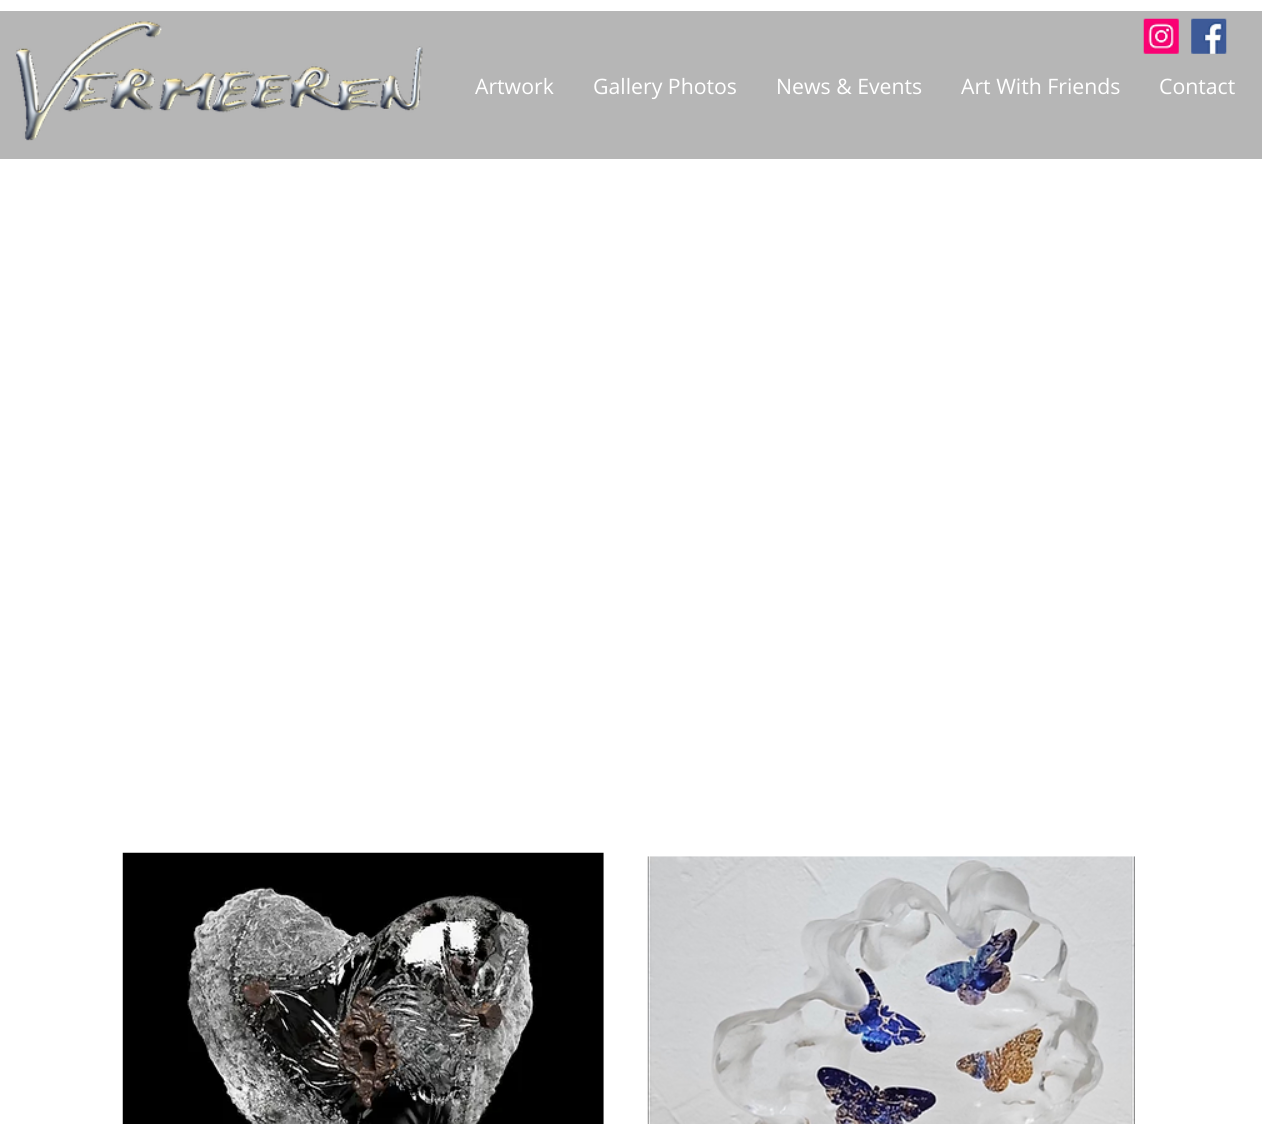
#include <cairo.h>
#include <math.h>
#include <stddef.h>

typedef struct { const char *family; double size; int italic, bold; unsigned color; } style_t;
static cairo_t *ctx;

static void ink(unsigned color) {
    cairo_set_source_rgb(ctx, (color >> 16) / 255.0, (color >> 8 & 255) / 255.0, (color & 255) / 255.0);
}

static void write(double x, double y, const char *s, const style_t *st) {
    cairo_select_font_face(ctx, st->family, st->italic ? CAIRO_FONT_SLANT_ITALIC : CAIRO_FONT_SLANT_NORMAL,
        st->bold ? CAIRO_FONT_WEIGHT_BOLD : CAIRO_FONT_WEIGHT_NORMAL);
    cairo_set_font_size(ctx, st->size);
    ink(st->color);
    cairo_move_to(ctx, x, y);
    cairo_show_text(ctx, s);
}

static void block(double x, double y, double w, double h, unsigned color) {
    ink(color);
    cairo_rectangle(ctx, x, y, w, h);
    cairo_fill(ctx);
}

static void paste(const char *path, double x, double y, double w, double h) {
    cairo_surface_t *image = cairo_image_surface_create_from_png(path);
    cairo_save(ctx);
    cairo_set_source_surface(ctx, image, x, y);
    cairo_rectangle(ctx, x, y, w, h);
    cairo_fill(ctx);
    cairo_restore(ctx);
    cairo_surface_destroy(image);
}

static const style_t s1 = {"Open Sans", 21.25, 0, 0, 0xffffff};

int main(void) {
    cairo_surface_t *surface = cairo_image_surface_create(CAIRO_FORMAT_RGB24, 1262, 1124);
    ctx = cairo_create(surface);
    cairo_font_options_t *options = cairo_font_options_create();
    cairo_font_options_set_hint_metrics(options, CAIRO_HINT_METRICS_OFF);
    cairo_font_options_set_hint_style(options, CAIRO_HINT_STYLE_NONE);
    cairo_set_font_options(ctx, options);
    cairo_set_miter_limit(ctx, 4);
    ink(0xffffff);
    cairo_paint(ctx);
    block(0, 11, 1262, 148, 0xb6b6b6);
    paste("pic1.png", 15, 21, 408, 120);
    paste("pic2.png", 1143, 18, 36, 36);
    paste("pic3.png", 1191, 18, 36, 36);
    write(475, 94, "Artwork", &s1);
    write(593, 94, "Gallery Photos", &s1);
    write(776, 94, "News & Events", &s1);
    write(961, 94, "Art With Friends", &s1);
    write(1159, 94, "Contact", &s1);
    paste("pic4.png", 122, 852, 482, 272);
    paste("pic5.png", 647, 856, 488, 268);
    cairo_surface_write_to_png(surface, "screenshot.png");
    cairo_font_options_destroy(options);
    cairo_destroy(ctx);
    cairo_surface_destroy(surface);
    return 0;
}
